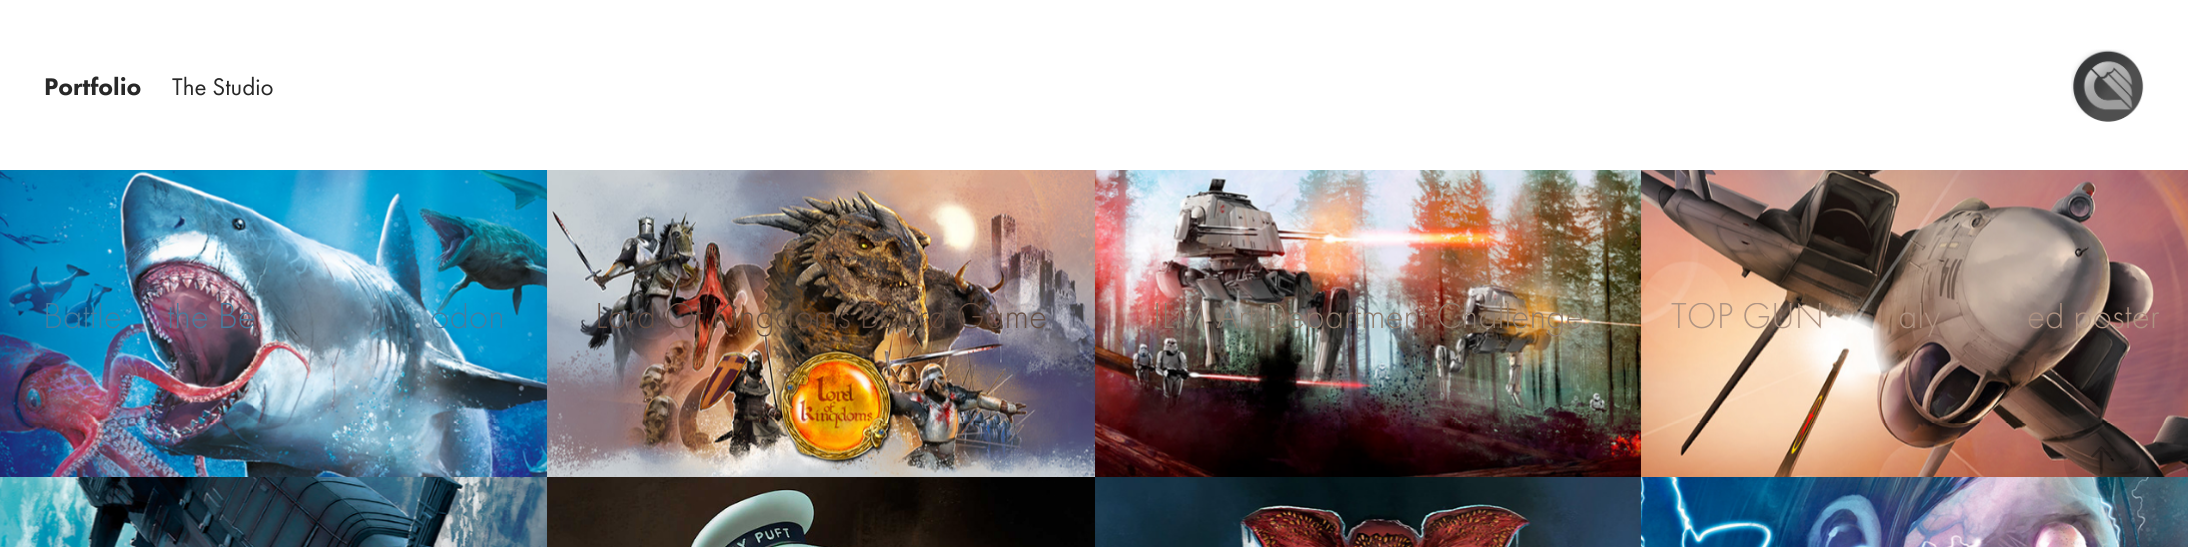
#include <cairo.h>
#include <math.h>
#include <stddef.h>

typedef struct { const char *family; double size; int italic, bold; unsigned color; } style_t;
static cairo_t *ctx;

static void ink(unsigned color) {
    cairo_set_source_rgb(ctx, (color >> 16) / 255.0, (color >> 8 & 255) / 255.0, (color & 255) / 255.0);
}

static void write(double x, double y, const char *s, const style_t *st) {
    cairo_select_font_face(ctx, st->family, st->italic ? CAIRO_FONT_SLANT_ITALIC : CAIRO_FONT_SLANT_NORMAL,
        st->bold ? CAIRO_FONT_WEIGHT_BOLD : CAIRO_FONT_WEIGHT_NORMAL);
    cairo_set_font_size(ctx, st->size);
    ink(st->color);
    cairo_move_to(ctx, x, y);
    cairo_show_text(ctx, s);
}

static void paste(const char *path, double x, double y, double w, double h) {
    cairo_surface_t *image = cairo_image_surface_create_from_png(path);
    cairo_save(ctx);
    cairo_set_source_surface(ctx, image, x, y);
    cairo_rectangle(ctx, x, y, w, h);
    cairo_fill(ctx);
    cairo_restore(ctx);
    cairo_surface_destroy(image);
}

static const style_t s1 = {"Futura PT Black", 25, 0, 0, 0x282828};
static const style_t s2 = {"Futura PT", 25, 0, 0, 0x282828};
static const style_t s3 = {"Futura PT Light", 37.5, 0, 0, 0x487c9d};
static const style_t s4 = {"Futura PT Light", 37.5, 0, 0, 0x664f43};
static const style_t s5 = {"Futura PT Light", 37.5, 0, 0, 0x8e7b6c};
static const style_t s6 = {"Futura PT Light", 37.5, 0, 0, 0xaf9382};

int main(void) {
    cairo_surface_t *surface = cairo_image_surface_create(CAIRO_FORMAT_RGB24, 2188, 547);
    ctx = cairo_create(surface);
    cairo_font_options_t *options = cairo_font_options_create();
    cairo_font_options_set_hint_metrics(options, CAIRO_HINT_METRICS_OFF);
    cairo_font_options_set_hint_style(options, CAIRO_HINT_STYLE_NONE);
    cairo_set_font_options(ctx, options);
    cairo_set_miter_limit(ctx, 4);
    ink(0xffffff);
    cairo_paint(ctx);
    write(44, 95, "Portfolio", &s1);
    write(172, 95, "The Studio", &s2);
    paste("pic1.png", 2071, 49, 73, 73);
    paste("pic2.png", 0, 170, 547, 307);
    cairo_save(ctx);
    cairo_rectangle(ctx, 0, 303, 548, 43);
    cairo_clip(ctx);
    write(43, 328, "Battle", &s3);
    write(167, 328, "the Be", &s3);
    write(430, 328, "odon", &s3);
    cairo_restore(ctx);
    paste("pic3.png", 547, 170, 548, 307);
    cairo_save(ctx);
    cairo_rectangle(ctx, 548, 303, 546, 43);
    cairo_clip(ctx);
    write(595, 328, "Lord Of Kingdoms Board Game", &s4);
    cairo_restore(ctx);
    paste("pic4.png", 1095, 170, 546, 307);
    cairo_save(ctx);
    cairo_rectangle(ctx, 1095, 303, 546, 43);
    cairo_clip(ctx);
    write(1153, 328, "ILM Art Department Challenge", &s5);
    cairo_restore(ctx);
    paste("pic5.png", 1641, 170, 547, 307);
    cairo_save(ctx);
    cairo_rectangle(ctx, 1641, 303, 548, 43);
    cairo_clip(ctx);
    write(1671, 328, "TOP GUN", &s6);
    write(1898, 328, "aly", &s6);
    write(2027, 328, "ed poster", &s6);
    cairo_restore(ctx);
    paste("pic6.png", 0, 477, 547, 70);
    paste("pic7.png", 547, 477, 548, 70);
    paste("pic8.png", 1095, 477, 546, 70);
    paste("pic9.png", 1641, 477, 547, 70);
    cairo_set_source_rgba(ctx, 0, 0, 0, 0.1);
    cairo_arc(ctx, 2101.5, 460.5, 37.5, 0, 2 * M_PI);
    cairo_fill(ctx);
    paste("pic10.png", 2091, 446, 21, 29);
    cairo_surface_write_to_png(surface, "screenshot.png");
    cairo_font_options_destroy(options);
    cairo_destroy(ctx);
    cairo_surface_destroy(surface);
    return 0;
}
